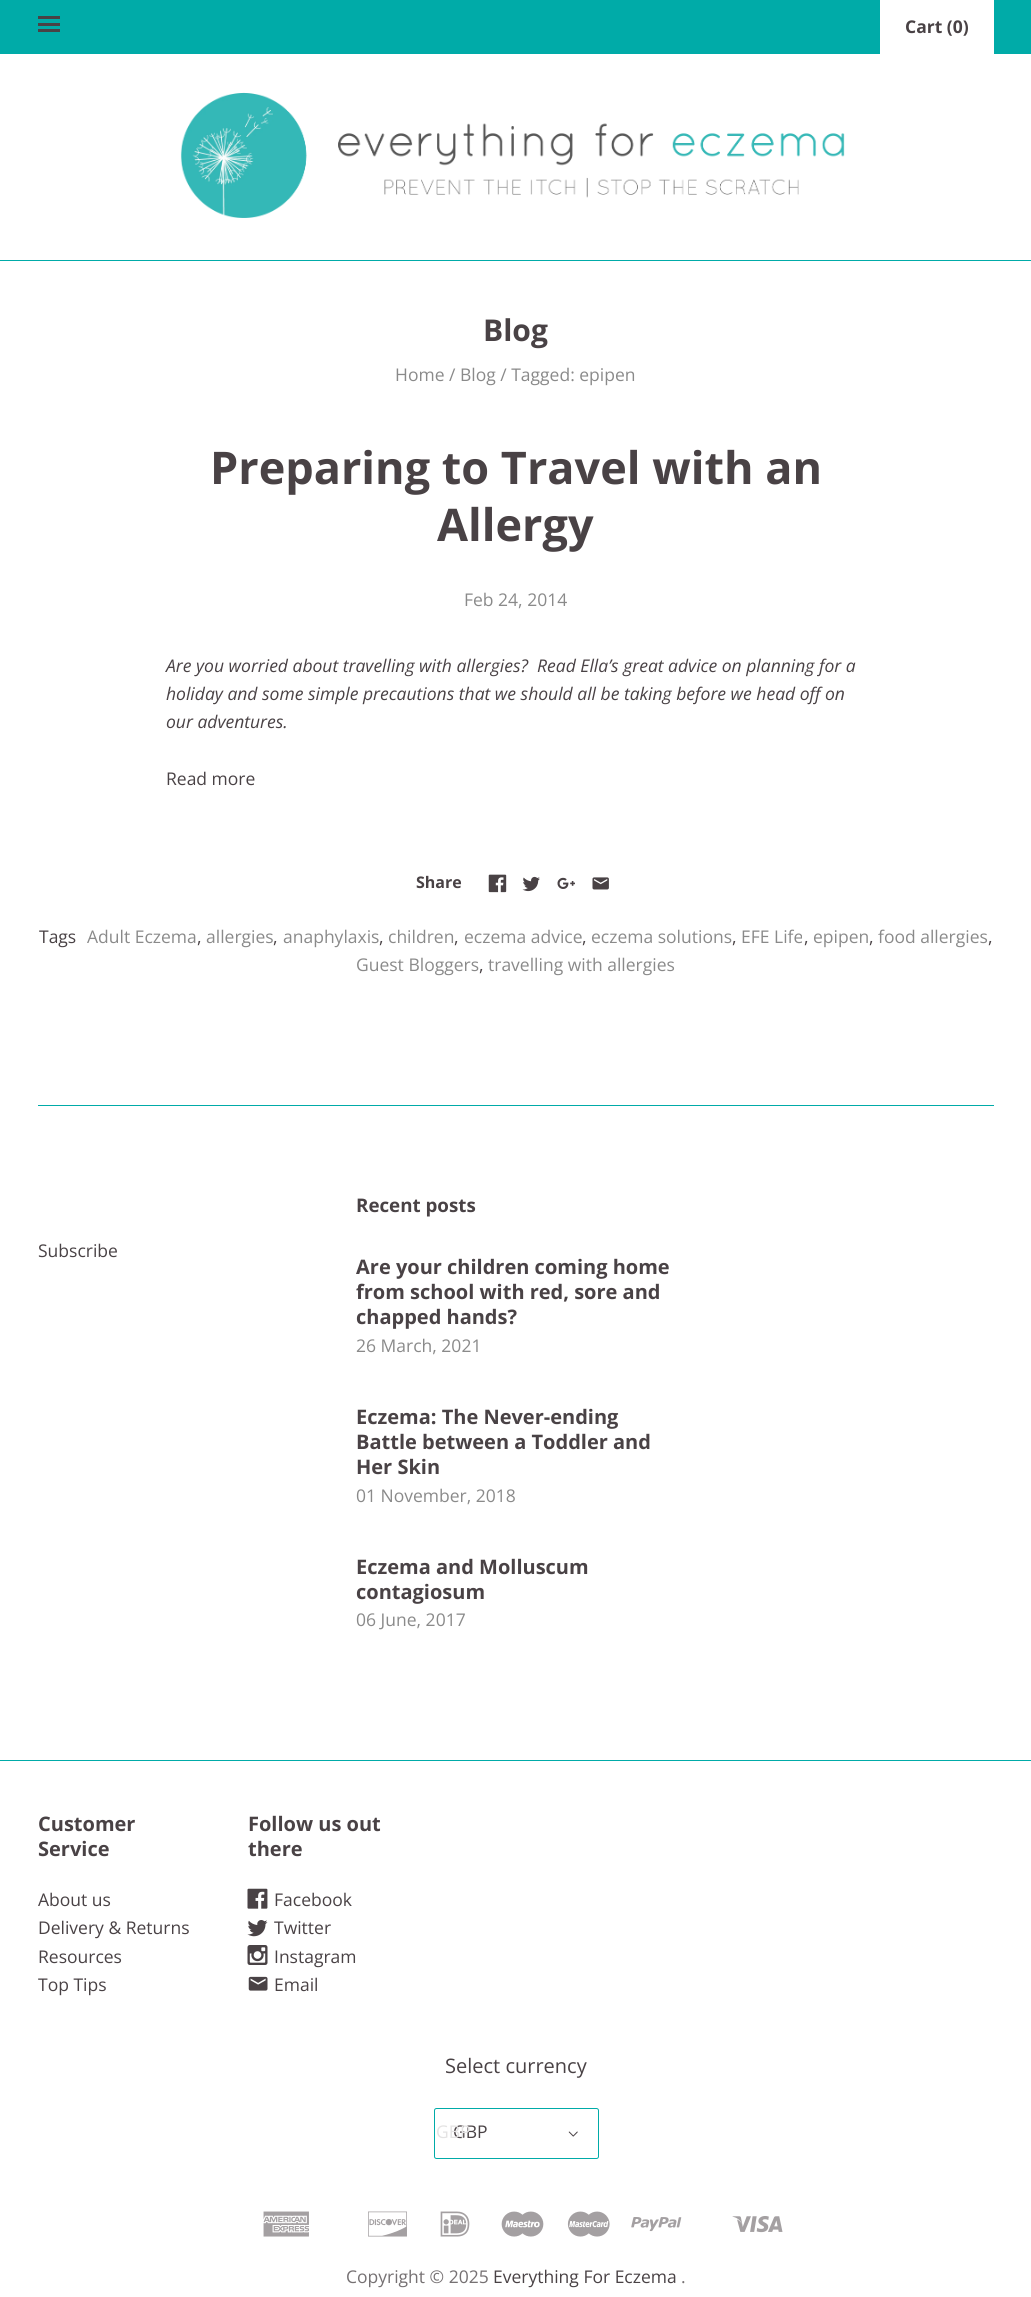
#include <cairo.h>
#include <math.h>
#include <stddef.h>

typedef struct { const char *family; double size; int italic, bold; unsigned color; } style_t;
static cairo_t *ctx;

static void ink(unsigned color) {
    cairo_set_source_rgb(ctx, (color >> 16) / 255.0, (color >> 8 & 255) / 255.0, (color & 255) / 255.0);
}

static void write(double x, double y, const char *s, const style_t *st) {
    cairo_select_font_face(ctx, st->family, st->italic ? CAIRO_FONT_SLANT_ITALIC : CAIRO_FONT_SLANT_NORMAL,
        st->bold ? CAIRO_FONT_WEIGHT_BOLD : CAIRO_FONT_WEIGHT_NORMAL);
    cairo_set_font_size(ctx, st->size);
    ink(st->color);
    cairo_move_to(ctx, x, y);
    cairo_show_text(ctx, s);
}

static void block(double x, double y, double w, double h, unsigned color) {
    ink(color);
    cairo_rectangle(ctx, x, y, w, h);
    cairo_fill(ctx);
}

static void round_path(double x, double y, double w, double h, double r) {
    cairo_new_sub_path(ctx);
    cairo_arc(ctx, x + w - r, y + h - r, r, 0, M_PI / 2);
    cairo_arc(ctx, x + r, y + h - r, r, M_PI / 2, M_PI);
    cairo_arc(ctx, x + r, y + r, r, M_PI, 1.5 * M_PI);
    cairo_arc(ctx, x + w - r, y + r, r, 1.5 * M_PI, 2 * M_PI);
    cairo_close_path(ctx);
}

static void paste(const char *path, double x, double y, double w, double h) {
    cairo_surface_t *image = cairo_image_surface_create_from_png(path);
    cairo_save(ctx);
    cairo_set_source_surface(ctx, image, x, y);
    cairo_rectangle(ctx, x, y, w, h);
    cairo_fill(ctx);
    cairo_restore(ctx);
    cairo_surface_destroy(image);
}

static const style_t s1 = {"Open Sans", 17.5, 0, 1, 0x494245};
static const style_t s2 = {"Open Sans", 30, 0, 1, 0x494245};
static const style_t s3 = {"Open Sans", 17.5, 0, 0, 0x8a8a8a};
static const style_t s4 = {"Open Sans", 45, 0, 1, 0x494245};
static const style_t s5 = {"Open Sans", 17.5, 1, 0, 0x494245};
static const style_t s6 = {"Open Sans", 17.5, 0, 0, 0x494245};
static const style_t s7 = {"Open Sans", 16, 0, 1, 0x494245};
static const style_t s8 = {"Open Sans", 18.75, 0, 1, 0x494245};
static const style_t s9 = {"Open Sans", 20, 0, 1, 0x494245};
static const style_t s10 = {"Open Sans", 20, 0, 0, 0x494245};
static const style_t s11 = {"Open Sans", 17.5, 0, 0, 0xe4e3e3};
static const style_t s12 = {"Open Sans", 17.5, 0, 0, 0x767173};

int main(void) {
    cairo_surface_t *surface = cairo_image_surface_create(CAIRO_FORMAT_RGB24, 1031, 2297);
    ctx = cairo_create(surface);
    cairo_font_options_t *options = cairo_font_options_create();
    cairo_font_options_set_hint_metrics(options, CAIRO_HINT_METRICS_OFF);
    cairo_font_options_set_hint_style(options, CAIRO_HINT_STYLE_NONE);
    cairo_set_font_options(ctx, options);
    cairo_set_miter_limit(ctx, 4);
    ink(0xffffff);
    cairo_paint(ctx);
    block(0, 0, 1031, 54, 0x00aba8);
    block(38, 23, 22, 3, 0x494245);
    block(38, 16, 22, 3, 0x494245);
    block(38, 29, 22, 3, 0x494245);
    block(880, 0, 114, 54, 0xffffff);
    write(905, 33, "Cart (0)", &s1);
    block(0, 260, 1031, 1, 0x00aba8);
    paste("pic1.png", 180, 92, 665, 126);
    write(483, 341, "Blog", &s2);
    write(395, 381, "Home / Blog / Tagged: epipen", &s3);
    block(38, 1105, 956, 1, 0x00aba8);
    write(210, 484, "Preparing to Travel with an", &s4);
    write(437, 541, "Allergy", &s4);
    write(464, 606, "Feb 24, 2014", &s3);
    write(166, 672, "Are you worried about travelling with allergies?  Read Ella’s great advice on planning for a", &s5);
    write(166, 700, "holiday and some simple precautions that we should all be taking before we head off on", &s5);
    write(166, 728, "our adventures.", &s5);
    write(166, 785, "Read more", &s6);
    write(416, 888, "Share", &s7);
    paste("pic2.png", 488, 874, 19, 19);
    paste("pic3.png", 522, 876, 18, 16);
    paste("pic4.png", 557, 877, 18, 12);
    paste("pic5.png", 592, 877, 17, 13);
    write(39, 943, "Tags", &s6);
    write(87, 943, "Adult Eczema", &s3);
    write(197, 943, ",", &s6);
    write(206, 943, "allergies", &s3);
    write(273, 943, ",", &s6);
    write(283, 943, "anaphylaxis", &s3);
    write(379, 943, ",", &s6);
    write(388, 943, "children", &s3);
    write(454, 943, ",", &s6);
    write(464, 943, "eczema advice", &s3);
    write(582, 943, ",", &s6);
    write(591, 943, "eczema solutions", &s3);
    write(732, 943, ",", &s6);
    write(741, 943, "EFE Life", &s3);
    write(804, 943, ",", &s6);
    write(813, 943, "epipen", &s3);
    write(869, 943, ",", &s6);
    write(878, 943, "food allergies", &s3);
    write(988, 943, ",", &s6);
    write(356, 971, "Guest Bloggers", &s3);
    write(479, 971, ",", &s6);
    write(488, 971, "travelling with allergies", &s3);
    write(38, 1257, "Subscribe", &s6);
    write(356, 1212, "Recent posts", &s8);
    write(356, 1274, "Are your children coming home", &s9);
    write(356, 1299, "from school with red, sore and", &s9);
    write(356, 1324, "chapped hands?", &s9);
    write(356, 1352, "26 March, 2021", &s3);
    write(356, 1424, "Eczema: The Never-ending", &s9);
    write(356, 1449, "Battle between a Toddler and", &s9);
    write(356, 1474, "Her Skin", &s9);
    write(356, 1502, "01 November, 2018", &s3);
    write(356, 1574, "Eczema and Molluscum", &s9);
    write(356, 1599, "contagiosum", &s9);
    write(356, 1626, "06 June, 2017", &s3);
    block(0, 1760, 1031, 1, 0x00aba8);
    write(38, 1831, "Customer", &s9);
    write(38, 1856, "Service", &s9);
    write(38, 1906, "About us", &s6);
    write(38, 1934, "Delivery & Returns", &s6);
    write(38, 1963, "Resources", &s6);
    write(38, 1991, "Top Tips", &s6);
    write(248, 1831, "Follow us out", &s9);
    write(248, 1856, "there", &s9);
    paste("pic6.png", 247, 1888, 21, 21);
    write(274, 1906, "Facebook", &s6);
    paste("pic7.png", 247, 1920, 21, 17);
    write(274, 1934, "Twitter", &s6);
    paste("pic8.png", 247, 1945, 21, 20);
    write(274, 1963, "Instagram", &s6);
    paste("pic9.png", 248, 1976, 20, 15);
    write(274, 1991, "Email", &s6);
    write(445, 2073, "Select currency", &s10);
    round_path(434.5, 2108.5, 164, 50, 2);
    ink(0x00aba8);
    cairo_set_line_width(ctx, 1);
    cairo_stroke(ctx);
    write(453, 2138, "GBP", &s6);
    write(436, 2138, "GBP", &s11);
    paste("pic10.png", 568, 2131, 10, 6);
    paste("pic11.png", 263, 2211, 46, 26);
    paste("pic12.png", 368, 2211, 39, 26);
    paste("pic13.png", 440, 2211, 30, 26);
    paste("pic14.png", 501, 2211, 43, 26);
    paste("pic15.png", 567, 2211, 43, 26);
    paste("pic16.png", 631, 2217, 51, 15);
    paste("pic17.png", 732, 2216, 51, 17);
    write(346, 2283, "Copyright © 2025", &s12);
    write(493, 2283, "Everything For Eczema", &s6);
    write(681, 2283, ".", &s12);
    cairo_surface_write_to_png(surface, "screenshot.png");
    cairo_font_options_destroy(options);
    cairo_destroy(ctx);
    cairo_surface_destroy(surface);
    return 0;
}
